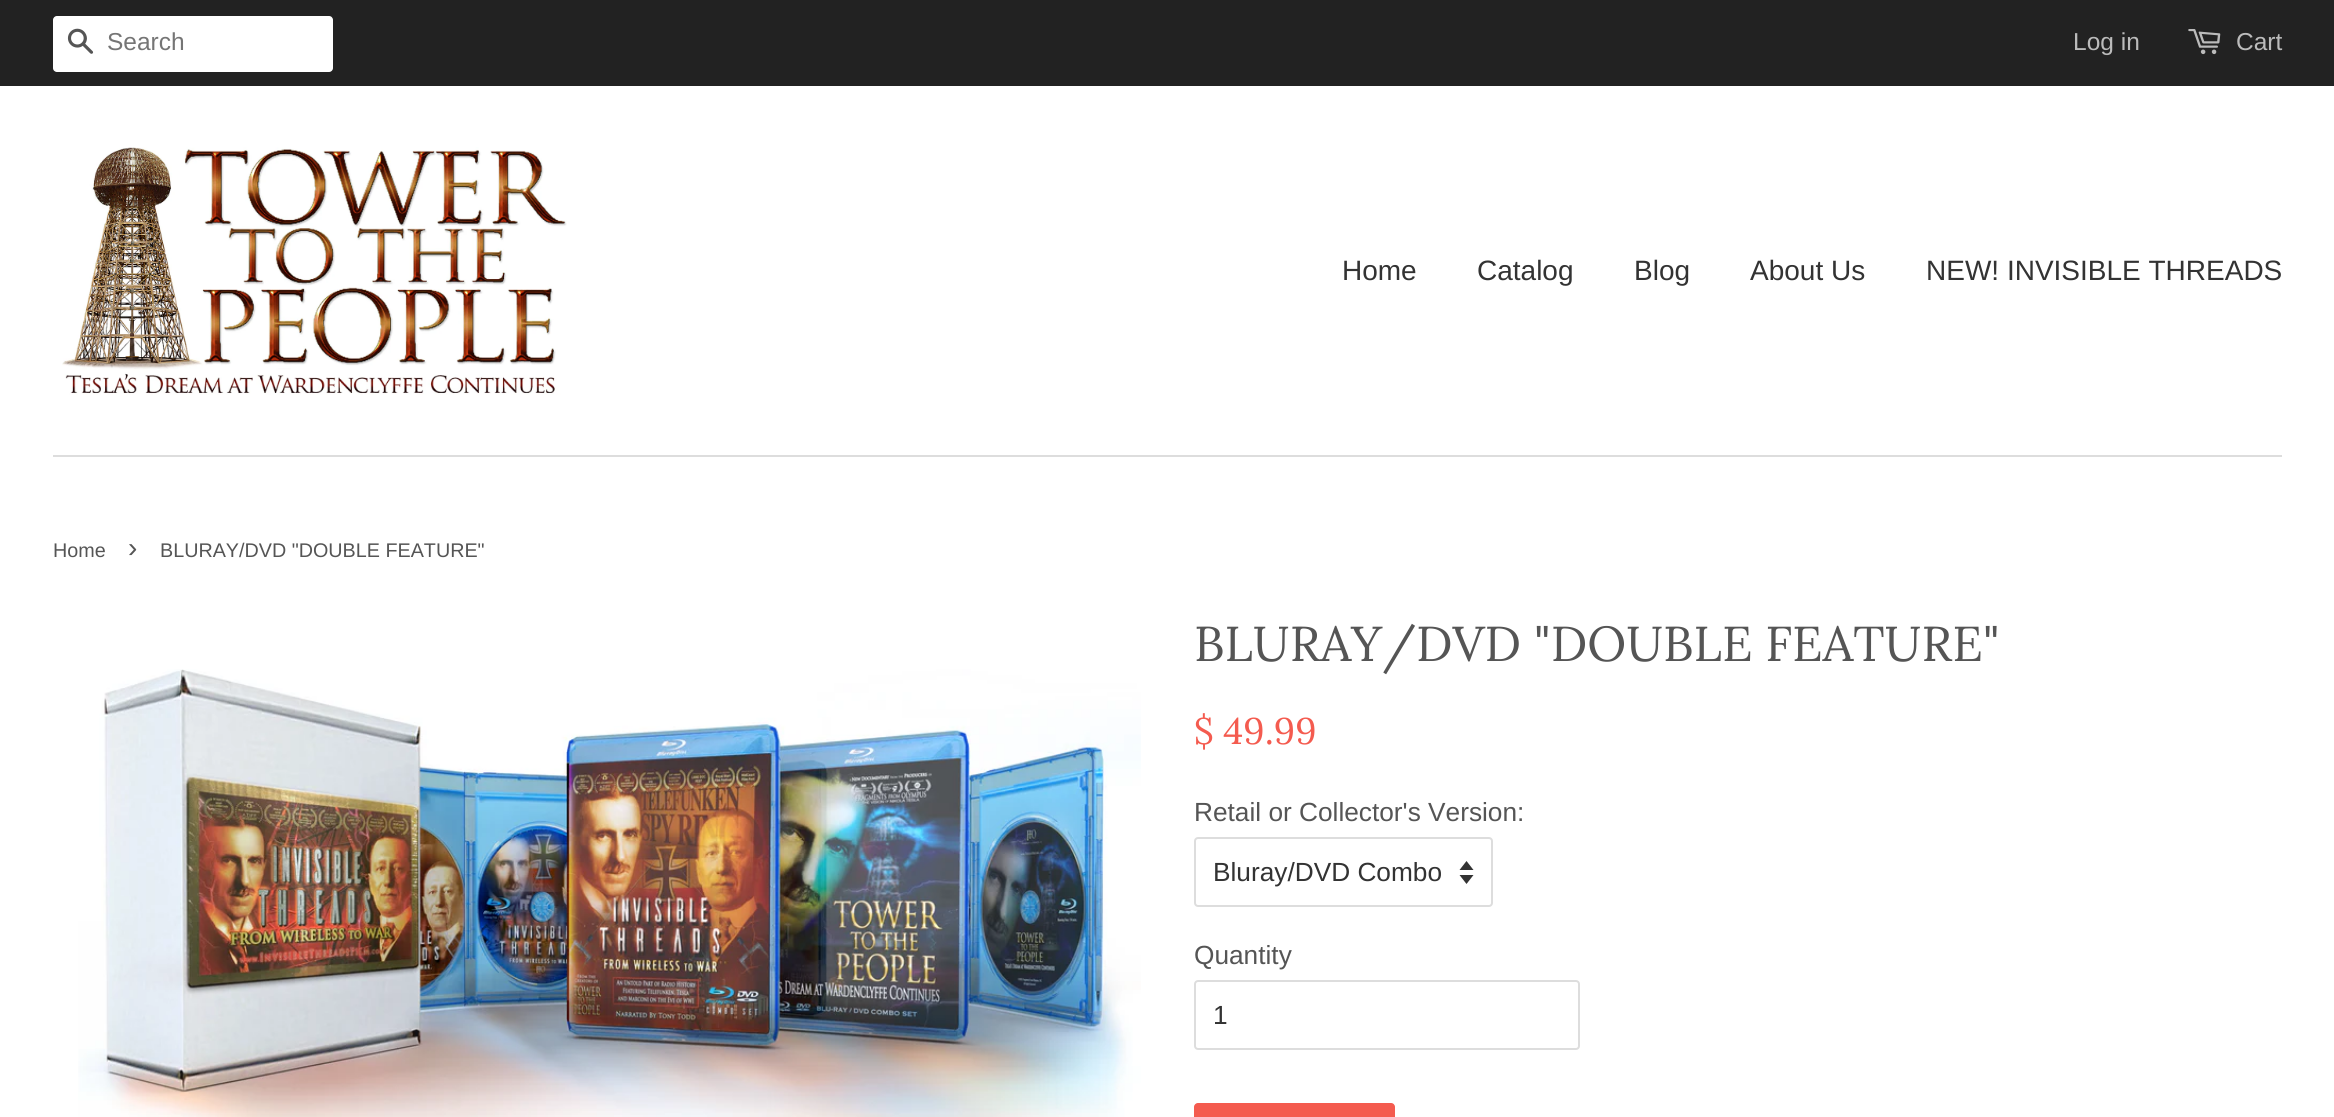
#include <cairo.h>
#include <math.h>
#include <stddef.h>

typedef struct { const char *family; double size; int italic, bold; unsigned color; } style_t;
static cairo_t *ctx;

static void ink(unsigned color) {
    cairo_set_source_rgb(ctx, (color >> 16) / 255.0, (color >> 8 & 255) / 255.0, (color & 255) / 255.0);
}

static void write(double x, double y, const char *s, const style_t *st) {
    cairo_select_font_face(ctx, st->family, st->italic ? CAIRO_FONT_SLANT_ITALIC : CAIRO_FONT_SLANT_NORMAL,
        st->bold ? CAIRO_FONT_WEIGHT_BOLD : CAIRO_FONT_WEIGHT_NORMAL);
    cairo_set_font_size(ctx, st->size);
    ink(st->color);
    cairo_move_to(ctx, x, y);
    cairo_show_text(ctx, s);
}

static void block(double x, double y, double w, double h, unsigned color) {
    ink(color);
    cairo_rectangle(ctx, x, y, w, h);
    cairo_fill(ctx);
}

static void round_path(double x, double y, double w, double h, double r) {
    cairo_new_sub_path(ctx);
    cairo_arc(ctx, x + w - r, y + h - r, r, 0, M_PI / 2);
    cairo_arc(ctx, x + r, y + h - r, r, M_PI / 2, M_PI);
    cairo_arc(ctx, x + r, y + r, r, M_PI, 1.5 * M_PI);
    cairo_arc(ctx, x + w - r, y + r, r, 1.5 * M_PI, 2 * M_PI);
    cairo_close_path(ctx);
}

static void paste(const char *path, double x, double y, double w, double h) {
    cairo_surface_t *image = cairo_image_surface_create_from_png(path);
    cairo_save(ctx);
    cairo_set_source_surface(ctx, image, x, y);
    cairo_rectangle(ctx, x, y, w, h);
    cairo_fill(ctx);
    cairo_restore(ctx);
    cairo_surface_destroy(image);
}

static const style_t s1 = {"Liberation Sans", 24.5, 0, 0, 0x757575};
static const style_t s2 = {"Liberation Sans", 24.5, 0, 0, 0xbbbbbb};
static const style_t s3 = {"Liberation Sans", 28, 0, 0, 0x333333};
static const style_t s4 = {"Liberation Sans", 19.75, 0, 0, 0x555555};
static const style_t s5 = {"Liberation Sans", 28, 0, 0, 0x555555};
static const style_t s6 = {"Lora", 49, 0, 0, 0x555555};
static const style_t s7 = {"Lora", 37, 0, 0, 0xf45b4f};
static const style_t s8 = {"Liberation Sans", 26.25, 0, 0, 0x555555};
static const style_t s9 = {"Liberation Sans", 26.25, 0, 0, 0x333333};

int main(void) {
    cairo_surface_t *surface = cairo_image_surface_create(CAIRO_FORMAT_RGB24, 2334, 1117);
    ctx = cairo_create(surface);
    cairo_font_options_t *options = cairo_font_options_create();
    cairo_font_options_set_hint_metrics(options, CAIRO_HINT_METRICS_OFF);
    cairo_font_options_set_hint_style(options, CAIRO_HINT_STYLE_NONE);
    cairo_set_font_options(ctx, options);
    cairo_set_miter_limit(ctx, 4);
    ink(0xffffff);
    cairo_paint(ctx);
    block(0, 0, 2334, 86, 0x222222);
    ink(0xffffff);
    round_path(53, 16, 280, 56, 4);
    cairo_fill(ctx);
    paste("pic1.png", 67, 28, 27, 26);
    write(107, 50, "Search", &s1);
    write(2073, 50, "Log in", &s2);
    paste("pic2.png", 2188, 29, 33, 26);
    write(2236, 50, "Cart", &s2);
    block(53, 455, 2229, 2, 0xdddddd);
    paste("pic3.png", 62, 147, 505, 248);
    write(1342, 280, "Home", &s3);
    write(1477, 280, "Catalog", &s3);
    write(1634, 280, "Blog", &s3);
    write(1750, 280, "About Us", &s3);
    write(1926, 280, "NEW! INVISIBLE THREADS", &s3);
    write(53, 557, "Home", &s4);
    write(128, 557, "›", &s5);
    write(160, 557, "BLURAY/DVD \"DOUBLE FEATURE\"", &s4);
    paste("pic4.png", 78, 669, 1063, 448);
    write(1194, 661, "BLURAY/DVD \"DOUBLE FEATURE\"", &s6);
    write(1194, 744, "$ 49.99", &s7);
    write(1194, 821, "Retail or Collector's Version:", &s8);
    ink(0x333333);
    cairo_new_path(ctx);
    cairo_move_to(ctx, 1459.5, 875);
    cairo_line_to(ctx, 1466.5, 884);
    cairo_line_to(ctx, 1473.5, 875);
    cairo_close_path(ctx);
    cairo_move_to(ctx, 1466.5, 861);
    cairo_line_to(ctx, 1459.5, 870);
    cairo_line_to(ctx, 1473.5, 870);
    cairo_close_path(ctx);
    cairo_fill(ctx);
    round_path(1195, 838, 297, 68, 3);
    ink(0xdddddd);
    cairo_stroke(ctx);
    write(1213, 881, "Bluray/DVD Combo", &s9);
    write(1194, 964, "Quantity", &s8);
    round_path(1195, 981, 384, 68, 3);
    ink(0xdddddd);
    cairo_stroke(ctx);
    write(1213, 1024, "1", &s9);
    ink(0xf45b4f);
    round_path(1194, 1103, 201, 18, 4);
    cairo_fill(ctx);
    cairo_surface_write_to_png(surface, "screenshot.png");
    cairo_font_options_destroy(options);
    cairo_destroy(ctx);
    cairo_surface_destroy(surface);
    return 0;
}
